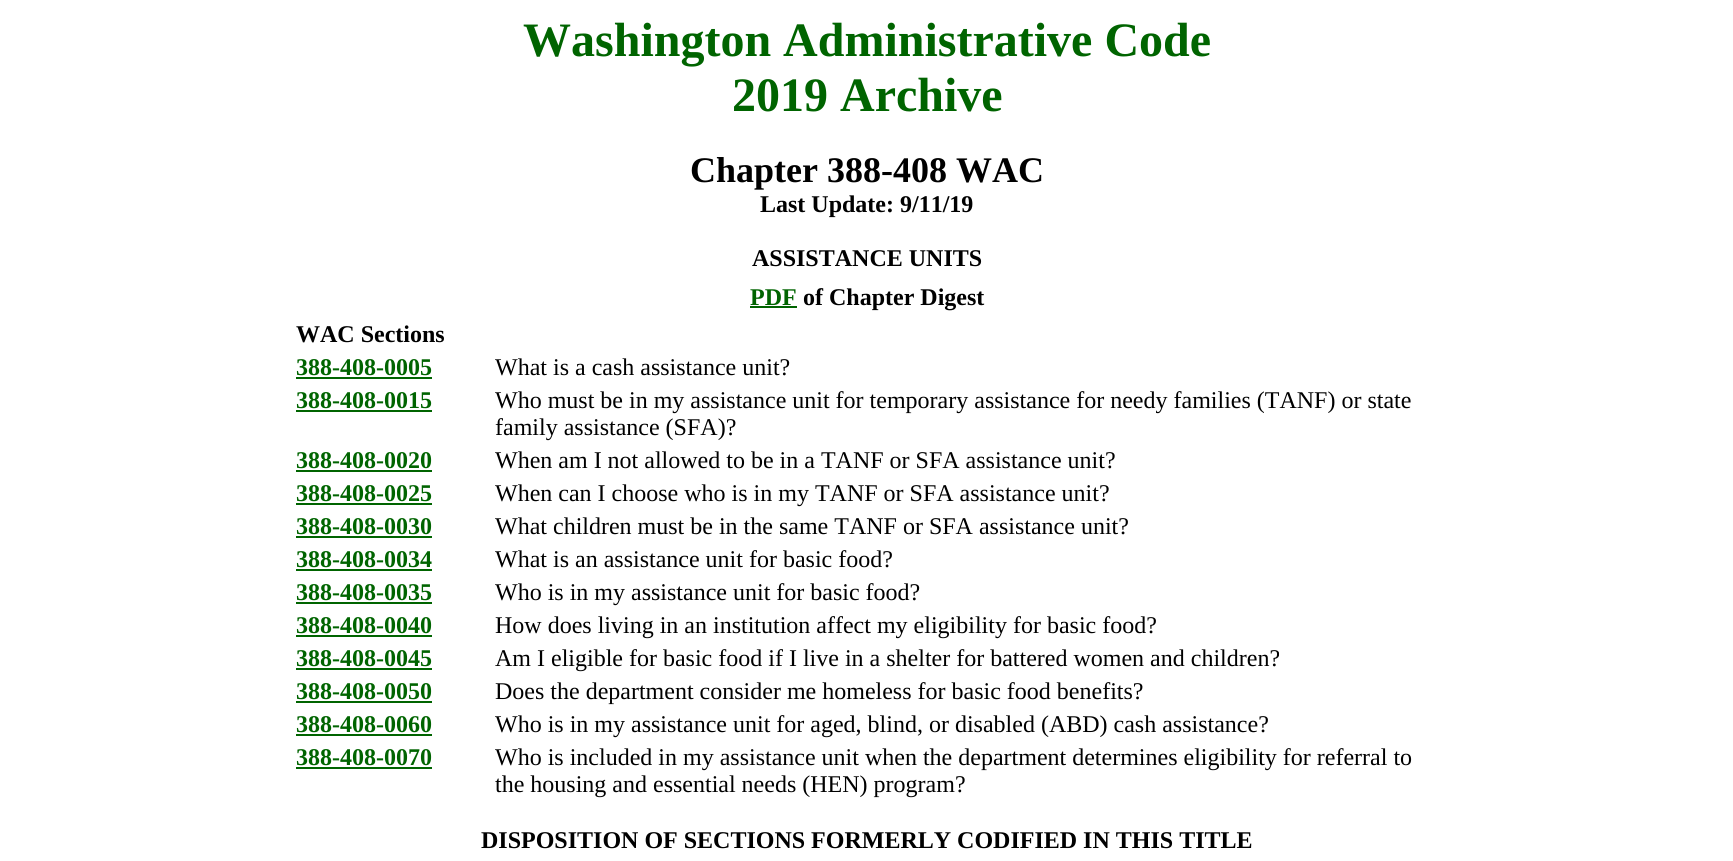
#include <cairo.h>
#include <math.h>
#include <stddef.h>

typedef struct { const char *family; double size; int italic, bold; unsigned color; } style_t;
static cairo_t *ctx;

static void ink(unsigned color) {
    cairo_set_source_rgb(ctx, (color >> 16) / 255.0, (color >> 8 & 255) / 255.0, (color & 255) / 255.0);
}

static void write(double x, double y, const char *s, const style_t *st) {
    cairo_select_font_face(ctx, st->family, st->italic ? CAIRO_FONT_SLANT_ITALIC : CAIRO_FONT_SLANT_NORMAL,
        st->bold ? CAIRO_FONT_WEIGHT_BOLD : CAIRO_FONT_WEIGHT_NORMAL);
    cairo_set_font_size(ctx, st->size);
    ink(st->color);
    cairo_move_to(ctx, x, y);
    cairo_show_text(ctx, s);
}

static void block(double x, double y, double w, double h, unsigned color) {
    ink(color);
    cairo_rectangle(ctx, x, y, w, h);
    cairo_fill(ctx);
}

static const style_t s1 = {"Liberation Serif", 48, 0, 1, 0x006400};
static const style_t s2 = {"Liberation Serif", 36, 0, 1, 0x000000};
static const style_t s3 = {"Liberation Serif", 24, 0, 1, 0x000000};
static const style_t s4 = {"Liberation Serif", 24, 0, 1, 0x006400};
static const style_t s5 = {"Liberation Serif", 24, 0, 0, 0x000000};

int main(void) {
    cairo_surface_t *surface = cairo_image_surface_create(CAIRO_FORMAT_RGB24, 1733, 861);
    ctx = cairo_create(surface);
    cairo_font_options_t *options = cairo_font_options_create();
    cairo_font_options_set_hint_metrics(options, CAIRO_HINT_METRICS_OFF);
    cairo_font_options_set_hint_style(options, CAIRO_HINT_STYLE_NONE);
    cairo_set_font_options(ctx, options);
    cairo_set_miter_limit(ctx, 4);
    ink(0xffffff);
    cairo_paint(ctx);
    write(523, 56, "Washington Administrative Code", &s1);
    write(732, 111, "2019 Archive", &s1);
    write(690, 182, "Chapter 388-408 WAC", &s2);
    write(760, 212, "Last Update: 9/11/19", &s3);
    write(752, 266, "ASSISTANCE UNITS", &s3);
    write(750, 305, "PDF", &s4);
    block(750, 306, 47, 2, 0x006400);
    write(803, 305, "of Chapter Digest", &s3);
    write(296, 342, "WAC Sections", &s3);
    write(296, 375, "388-408-0005", &s4);
    block(296, 377, 136, 2, 0x006400);
    write(495, 375, "What is a cash assistance unit?", &s5);
    write(296, 408, "388-408-0015", &s4);
    block(296, 410, 136, 2, 0x006400);
    write(495, 408, "Who must be in my assistance unit for temporary assistance for needy families (TANF) or state", &s5);
    write(495, 435, "family assistance (SFA)?", &s5);
    write(296, 468, "388-408-0020", &s4);
    block(296, 470, 136, 2, 0x006400);
    write(495, 468, "When am I not allowed to be in a TANF or SFA assistance unit?", &s5);
    write(296, 501, "388-408-0025", &s4);
    block(296, 503, 136, 2, 0x006400);
    write(495, 501, "When can I choose who is in my TANF or SFA assistance unit?", &s5);
    write(296, 534, "388-408-0030", &s4);
    block(296, 536, 136, 2, 0x006400);
    write(495, 534, "What children must be in the same TANF or SFA assistance unit?", &s5);
    write(296, 567, "388-408-0034", &s4);
    block(296, 569, 136, 2, 0x006400);
    write(495, 567, "What is an assistance unit for basic food?", &s5);
    write(296, 600, "388-408-0035", &s4);
    block(296, 602, 136, 2, 0x006400);
    write(495, 600, "Who is in my assistance unit for basic food?", &s5);
    write(296, 633, "388-408-0040", &s4);
    block(296, 635, 136, 2, 0x006400);
    write(495, 633, "How does living in an institution affect my eligibility for basic food?", &s5);
    write(296, 666, "388-408-0045", &s4);
    block(296, 668, 136, 2, 0x006400);
    write(495, 666, "Am I eligible for basic food if I live in a shelter for battered women and children?", &s5);
    write(296, 699, "388-408-0050", &s4);
    block(296, 701, 136, 2, 0x006400);
    write(495, 699, "Does the department consider me homeless for basic food benefits?", &s5);
    write(296, 732, "388-408-0060", &s4);
    block(296, 734, 136, 2, 0x006400);
    write(495, 732, "Who is in my assistance unit for aged, blind, or disabled (ABD) cash assistance?", &s5);
    write(296, 765, "388-408-0070", &s4);
    block(296, 767, 136, 2, 0x006400);
    write(495, 765, "Who is included in my assistance unit when the department determines eligibility for referral to", &s5);
    write(495, 792, "the housing and essential needs (HEN) program?", &s5);
    write(481, 848, "DISPOSITION OF SECTIONS FORMERLY CODIFIED IN THIS TITLE", &s3);
    cairo_surface_write_to_png(surface, "screenshot.png");
    cairo_font_options_destroy(options);
    cairo_destroy(ctx);
    cairo_surface_destroy(surface);
    return 0;
}
